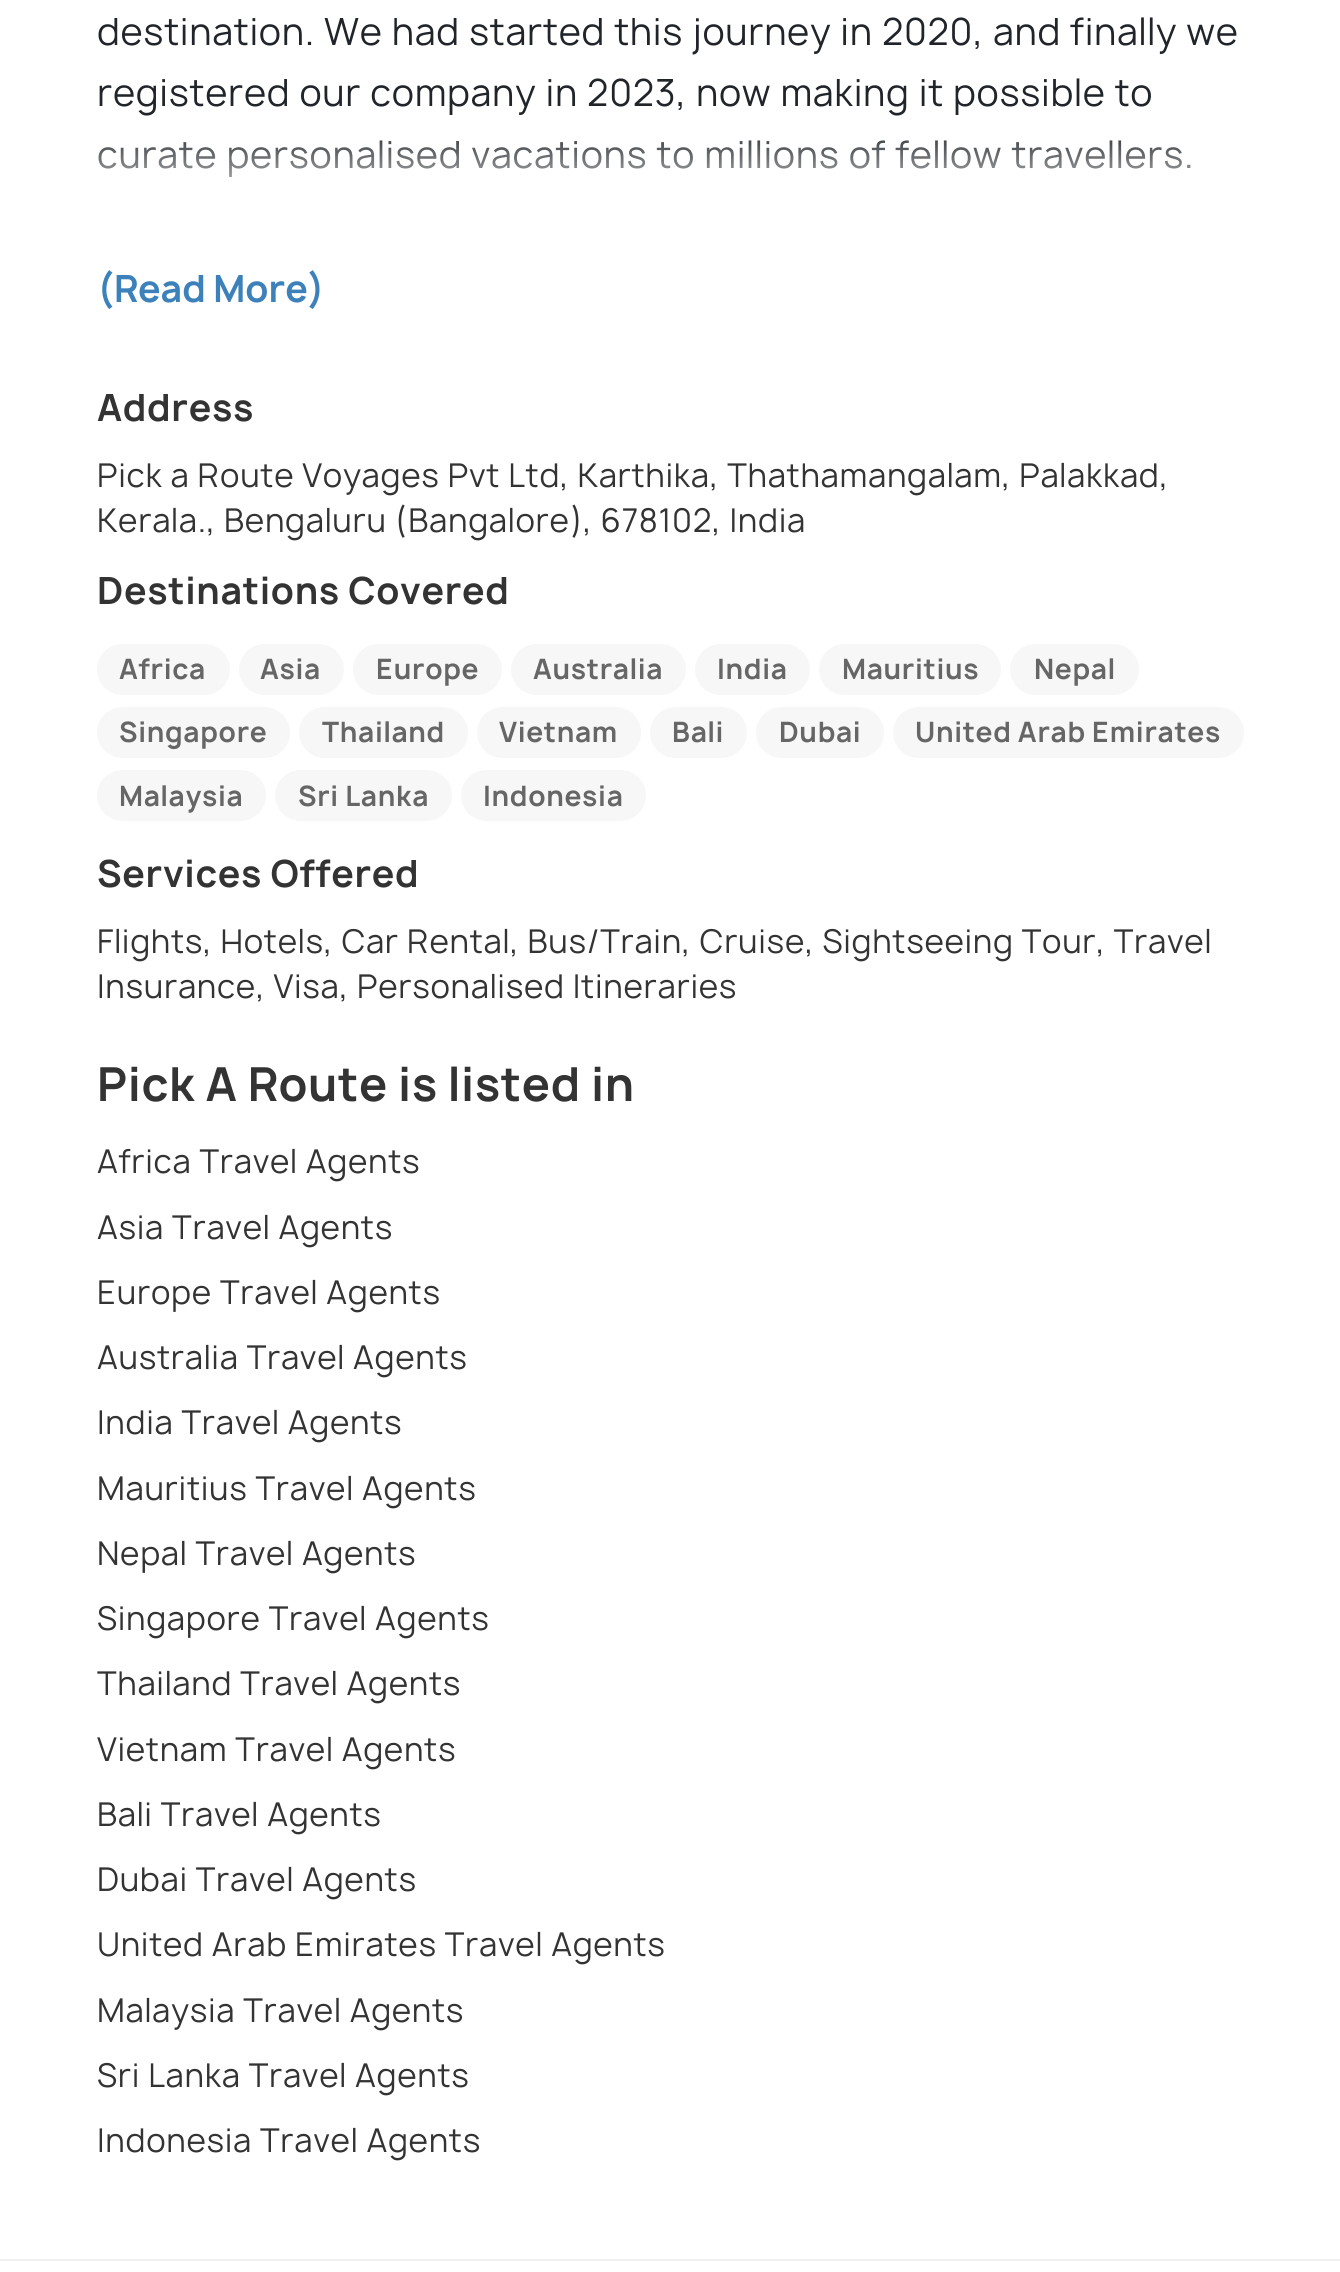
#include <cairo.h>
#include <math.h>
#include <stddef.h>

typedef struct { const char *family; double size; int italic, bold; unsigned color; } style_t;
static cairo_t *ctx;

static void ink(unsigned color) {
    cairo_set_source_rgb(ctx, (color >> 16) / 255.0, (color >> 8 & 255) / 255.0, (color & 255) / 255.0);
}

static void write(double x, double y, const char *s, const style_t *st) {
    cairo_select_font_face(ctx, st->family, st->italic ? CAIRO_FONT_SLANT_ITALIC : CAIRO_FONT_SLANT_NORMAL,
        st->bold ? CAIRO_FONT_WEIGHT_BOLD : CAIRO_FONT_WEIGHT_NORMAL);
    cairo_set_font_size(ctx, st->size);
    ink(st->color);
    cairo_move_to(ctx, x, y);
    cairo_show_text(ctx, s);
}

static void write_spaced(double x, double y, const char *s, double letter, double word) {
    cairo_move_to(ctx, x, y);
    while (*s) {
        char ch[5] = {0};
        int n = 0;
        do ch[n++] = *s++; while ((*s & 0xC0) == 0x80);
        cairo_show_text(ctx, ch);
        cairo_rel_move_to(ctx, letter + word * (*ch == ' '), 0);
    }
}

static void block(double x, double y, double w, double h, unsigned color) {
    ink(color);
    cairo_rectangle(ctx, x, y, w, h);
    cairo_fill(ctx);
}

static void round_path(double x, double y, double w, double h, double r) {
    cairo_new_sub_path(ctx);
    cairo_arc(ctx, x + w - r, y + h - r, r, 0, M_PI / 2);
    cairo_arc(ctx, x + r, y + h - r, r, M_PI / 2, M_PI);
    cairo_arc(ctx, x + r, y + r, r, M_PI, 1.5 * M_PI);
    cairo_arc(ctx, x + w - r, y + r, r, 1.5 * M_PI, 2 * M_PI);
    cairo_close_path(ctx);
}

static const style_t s1 = {"Manrope", 36, 0, 1, 0x3d81bb};

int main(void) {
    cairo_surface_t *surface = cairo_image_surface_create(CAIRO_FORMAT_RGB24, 1340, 2272);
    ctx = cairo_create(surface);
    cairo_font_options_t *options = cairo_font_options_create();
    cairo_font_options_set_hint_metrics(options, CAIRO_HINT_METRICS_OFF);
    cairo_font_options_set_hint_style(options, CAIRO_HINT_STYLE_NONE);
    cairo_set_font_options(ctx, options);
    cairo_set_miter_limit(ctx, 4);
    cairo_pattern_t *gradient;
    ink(0xffffff);
    cairo_paint(ctx);
    cairo_select_font_face(ctx, "Manrope", CAIRO_FONT_SLANT_NORMAL, CAIRO_FONT_WEIGHT_NORMAL);
    cairo_set_font_size(ctx, 36);
    ink(0x212529);
    write_spaced(97, 45, "destination. We had started this journey in 2020, and finally we", 0.67, 0);
    write_spaced(97, 106, "registered our company in 2023, now making it possible to", 0.67, 0);
    write_spaced(97, 168, "curate personalised vacations to millions of fellow travellers.", 0.67, 0);
    gradient = cairo_pattern_create_linear(671, 124, 671, 320);
    cairo_pattern_add_color_stop_rgba(gradient, 0, 1, 1, 1, 0);
    cairo_pattern_add_color_stop_rgba(gradient, 0.5, 1, 1, 1, 1);
    cairo_pattern_add_color_stop_rgba(gradient, 1, 1, 1, 1, 1);
    cairo_set_source(ctx, gradient);
    cairo_pattern_destroy(gradient);
    cairo_rectangle(ctx, 98, 140, 1093, 37);
    cairo_fill(ctx);
    write(97, 302, "(Read More)", &s1);
    ink(0x333333);
    write_spaced(97, 421, "Address", 0.67, 0);
    cairo_select_font_face(ctx, "Manrope", CAIRO_FONT_SLANT_NORMAL, CAIRO_FONT_WEIGHT_NORMAL);
    cairo_set_font_size(ctx, 31.5);
    write_spaced(97, 487, "Pick a Route Voyages Pvt Ltd, Karthika, Thathamangalam, Palakkad,", 0.67, 0);
    write_spaced(97, 532, "Kerala., Bengaluru (Bangalore), 678102, India", 0.67, 0);
    cairo_select_font_face(ctx, "Manrope", CAIRO_FONT_SLANT_NORMAL, CAIRO_FONT_WEIGHT_BOLD);
    cairo_set_font_size(ctx, 36);
    write_spaced(97, 604, "Destinations Covered", 0.67, 0);
    ink(0xf7f7f7);
    round_path(97, 644, 133, 51, 25.5);
    cairo_fill(ctx);
    cairo_set_font_size(ctx, 27);
    ink(0x676666);
    write_spaced(119, 679, "Africa", 0.67, 0);
    ink(0xf7f7f7);
    round_path(239, 644, 105, 51, 25.5);
    cairo_fill(ctx);
    ink(0x676666);
    write_spaced(260, 679, "Asia", 0.67, 0);
    ink(0xf7f7f7);
    round_path(353, 644, 149, 51, 25.5);
    cairo_fill(ctx);
    ink(0x676666);
    write_spaced(376, 679, "Europe", 0.67, 0);
    ink(0xf7f7f7);
    round_path(511, 644, 175, 51, 25.5);
    cairo_fill(ctx);
    ink(0x676666);
    write_spaced(533, 679, "Australia", 0.67, 0);
    ink(0xf7f7f7);
    round_path(695, 644, 115, 51, 25.5);
    cairo_fill(ctx);
    ink(0x676666);
    write_spaced(717, 679, "India", 0.67, 0);
    ink(0xf7f7f7);
    round_path(819, 644, 182, 51, 25.5);
    cairo_fill(ctx);
    ink(0x676666);
    write_spaced(842, 679, "Mauritius", 0.67, 0);
    ink(0xf7f7f7);
    round_path(1010, 644, 129, 51, 25.5);
    cairo_fill(ctx);
    ink(0x676666);
    write_spaced(1034, 679, "Nepal", 0.67, 0);
    ink(0xf7f7f7);
    round_path(97, 707, 193, 51, 25.5);
    cairo_fill(ctx);
    ink(0x676666);
    write_spaced(119, 742, "Singapore", 0.67, 0);
    ink(0xf7f7f7);
    round_path(299, 707, 169, 51, 25.5);
    cairo_fill(ctx);
    ink(0x676666);
    write_spaced(322, 742, "Thailand", 0.67, 0);
    ink(0xf7f7f7);
    round_path(477, 707, 164, 51, 25.5);
    cairo_fill(ctx);
    ink(0x676666);
    write_spaced(499, 742, "Vietnam", 0.67, 0);
    ink(0xf7f7f7);
    round_path(650, 707, 97, 51, 25.5);
    cairo_fill(ctx);
    ink(0x676666);
    write_spaced(672, 742, "Bali", 0.67, 0);
    ink(0xf7f7f7);
    round_path(756, 707, 128, 51, 25.5);
    cairo_fill(ctx);
    ink(0x676666);
    write_spaced(779, 742, "Dubai", 0.67, 0);
    ink(0xf7f7f7);
    round_path(893, 707, 351, 51, 25.5);
    cairo_fill(ctx);
    ink(0x676666);
    write_spaced(915, 742, "United Arab Emirates", 0.67, 0);
    ink(0xf7f7f7);
    round_path(97, 770, 169, 51, 25.5);
    cairo_fill(ctx);
    ink(0x676666);
    write_spaced(119, 806, "Malaysia", 0.67, 0);
    ink(0xf7f7f7);
    round_path(275, 770, 177, 51, 25.5);
    cairo_fill(ctx);
    ink(0x676666);
    write_spaced(298, 806, "Sri Lanka", 0.67, 0);
    ink(0xf7f7f7);
    round_path(461, 770, 185, 51, 25.5);
    cairo_fill(ctx);
    ink(0x676666);
    write_spaced(483, 806, "Indonesia", 0.67, 0);
    cairo_set_font_size(ctx, 36);
    ink(0x333333);
    write_spaced(97, 887, "Services Offered", 0.67, 0);
    cairo_select_font_face(ctx, "Manrope", CAIRO_FONT_SLANT_NORMAL, CAIRO_FONT_WEIGHT_NORMAL);
    cairo_set_font_size(ctx, 31.5);
    write_spaced(97, 953, "Flights, Hotels, Car Rental, Bus/Train, Cruise, Sightseeing Tour, Travel", 0.67, 0);
    write_spaced(97, 998, "Insurance, Visa, Personalised Itineraries", 0.67, 0);
    cairo_select_font_face(ctx, "Manrope", CAIRO_FONT_SLANT_NORMAL, CAIRO_FONT_WEIGHT_BOLD);
    cairo_set_font_size(ctx, 45);
    write_spaced(97, 1101, "Pick A Route is listed in", 0.67, 0);
    cairo_select_font_face(ctx, "Manrope", CAIRO_FONT_SLANT_NORMAL, CAIRO_FONT_WEIGHT_NORMAL);
    cairo_set_font_size(ctx, 31.5);
    write_spaced(97, 1173, "Africa Travel Agents", 0.67, 0);
    write_spaced(97, 1239, "Asia Travel Agents", 0.67, 0);
    write_spaced(97, 1304, "Europe Travel Agents", 0.67, 0);
    write_spaced(97, 1369, "Australia Travel Agents", 0.67, 0);
    write_spaced(97, 1434, "India Travel Agents", 0.67, 0);
    write_spaced(97, 1500, "Mauritius Travel Agents", 0.67, 0);
    write_spaced(97, 1565, "Nepal Travel Agents", 0.67, 0);
    write_spaced(97, 1630, "Singapore Travel Agents", 0.67, 0);
    write_spaced(97, 1695, "Thailand Travel Agents", 0.67, 0);
    write_spaced(97, 1761, "Vietnam Travel Agents", 0.67, 0);
    write_spaced(97, 1826, "Bali Travel Agents", 0.67, 0);
    write_spaced(97, 1891, "Dubai Travel Agents", 0.67, 0);
    write_spaced(97, 1956, "United Arab Emirates Travel Agents", 0.67, 0);
    write_spaced(97, 2022, "Malaysia Travel Agents", 0.67, 0);
    write_spaced(97, 2087, "Sri Lanka Travel Agents", 0.67, 0);
    write_spaced(97, 2152, "Indonesia Travel Agents", 0.67, 0);
    block(0, 2259, 1340, 2, 0xf0f0f0);
    cairo_surface_write_to_png(surface, "screenshot.png");
    cairo_font_options_destroy(options);
    cairo_destroy(ctx);
    cairo_surface_destroy(surface);
    return 0;
}
